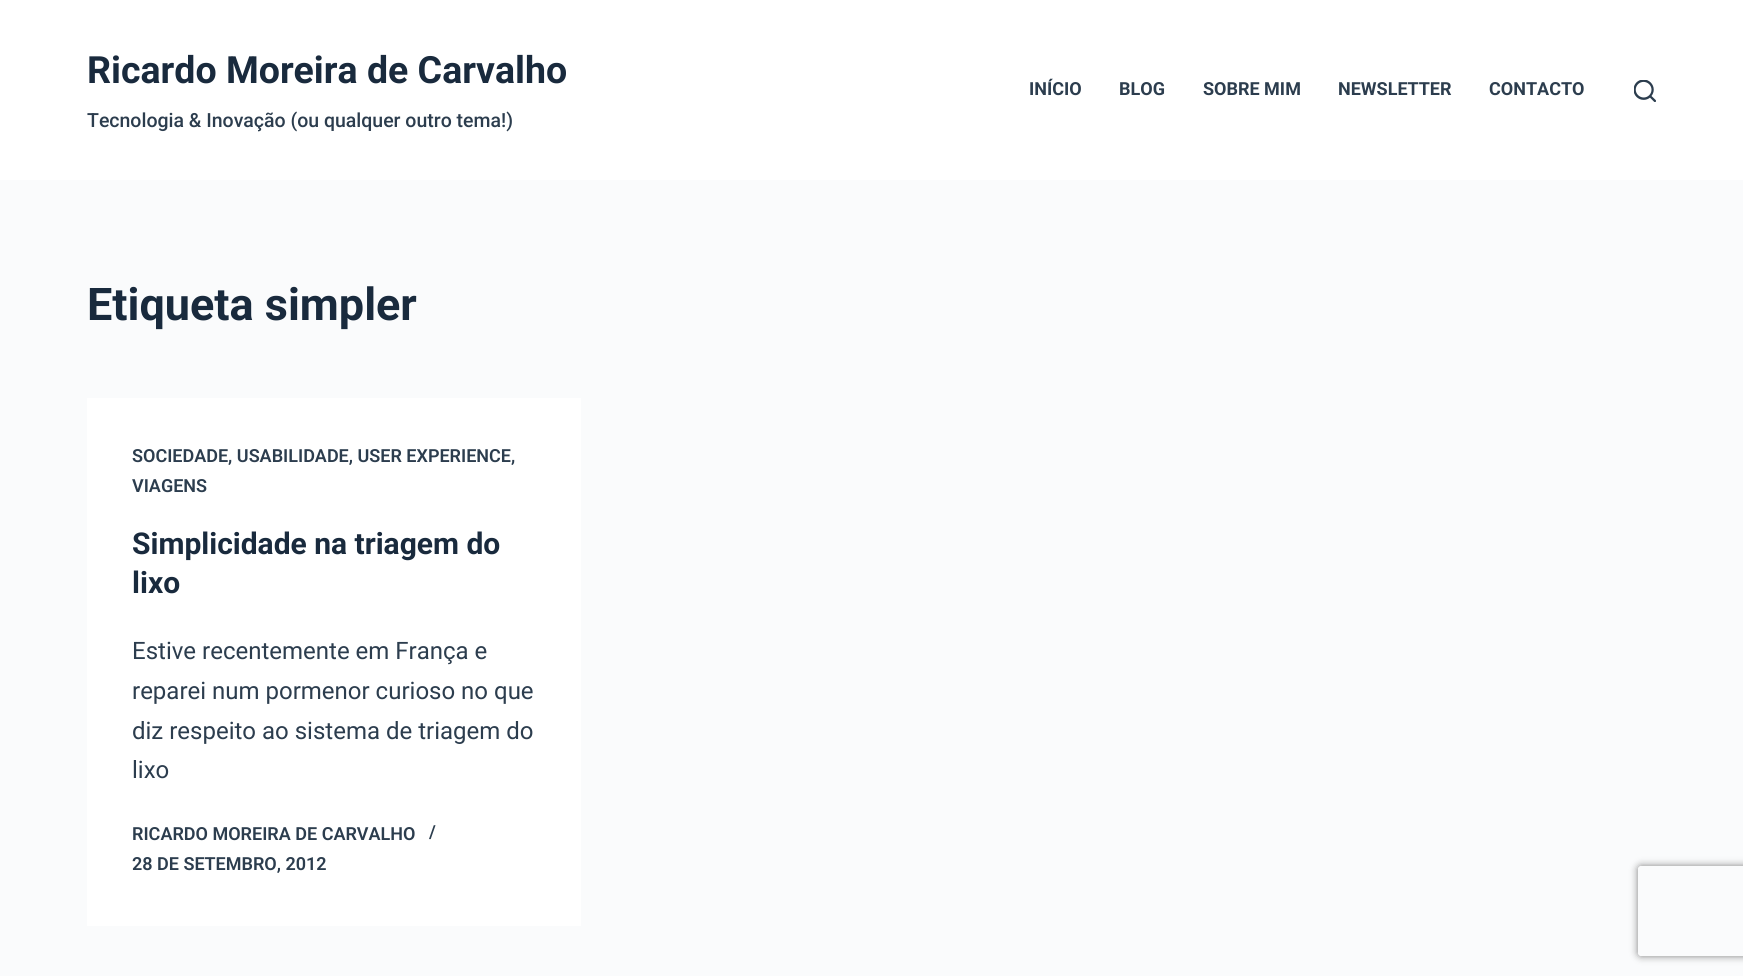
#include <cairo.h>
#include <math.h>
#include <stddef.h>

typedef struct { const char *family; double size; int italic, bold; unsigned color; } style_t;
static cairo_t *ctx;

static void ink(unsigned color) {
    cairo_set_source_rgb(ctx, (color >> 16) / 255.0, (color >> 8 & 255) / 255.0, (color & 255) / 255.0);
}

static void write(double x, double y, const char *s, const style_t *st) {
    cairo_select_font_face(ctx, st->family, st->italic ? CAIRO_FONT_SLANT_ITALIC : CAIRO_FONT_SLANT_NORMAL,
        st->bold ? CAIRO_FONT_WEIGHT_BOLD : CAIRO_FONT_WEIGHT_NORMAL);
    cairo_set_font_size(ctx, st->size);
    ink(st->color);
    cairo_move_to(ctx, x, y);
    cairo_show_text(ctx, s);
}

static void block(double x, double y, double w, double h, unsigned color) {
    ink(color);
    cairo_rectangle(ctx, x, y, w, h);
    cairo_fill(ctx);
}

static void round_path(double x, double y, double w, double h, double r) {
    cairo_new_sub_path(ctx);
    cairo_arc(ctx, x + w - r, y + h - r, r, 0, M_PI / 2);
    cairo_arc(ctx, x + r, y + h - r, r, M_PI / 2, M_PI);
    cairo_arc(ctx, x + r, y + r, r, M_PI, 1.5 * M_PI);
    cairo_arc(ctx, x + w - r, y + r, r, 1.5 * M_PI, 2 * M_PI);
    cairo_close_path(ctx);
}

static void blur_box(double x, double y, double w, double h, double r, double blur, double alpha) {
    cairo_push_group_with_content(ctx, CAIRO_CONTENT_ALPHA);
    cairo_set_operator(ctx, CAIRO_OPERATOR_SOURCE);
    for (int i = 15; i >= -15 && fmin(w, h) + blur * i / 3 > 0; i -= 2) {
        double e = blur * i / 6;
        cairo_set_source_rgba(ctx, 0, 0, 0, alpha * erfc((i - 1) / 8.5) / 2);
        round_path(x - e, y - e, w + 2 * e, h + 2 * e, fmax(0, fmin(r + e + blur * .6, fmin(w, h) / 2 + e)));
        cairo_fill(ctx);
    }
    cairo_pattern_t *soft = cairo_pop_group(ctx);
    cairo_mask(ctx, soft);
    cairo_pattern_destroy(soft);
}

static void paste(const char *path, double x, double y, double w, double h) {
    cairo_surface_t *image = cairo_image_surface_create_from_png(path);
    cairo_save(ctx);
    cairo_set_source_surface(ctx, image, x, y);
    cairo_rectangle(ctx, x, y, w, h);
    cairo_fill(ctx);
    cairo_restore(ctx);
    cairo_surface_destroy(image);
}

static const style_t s1 = {"Roboto", 37.5, 0, 1, 0x192a3d};
static const style_t s2 = {"Roboto Medium", 19.5, 0, 0, 0x2c3d4e};
static const style_t s3 = {"Roboto", 18, 0, 1, 0x2c3d4e};
static const style_t s4 = {"Roboto", 45, 0, 1, 0x192a3d};
static const style_t s5 = {"Roboto SemiBold", 18, 0, 0, 0x2c3d4e};
static const style_t s6 = {"Roboto", 30, 0, 1, 0x192a3d};
static const style_t s7 = {"Roboto", 24, 0, 0, 0x2c3d4e};

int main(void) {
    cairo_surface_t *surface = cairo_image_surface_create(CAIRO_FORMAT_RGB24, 1743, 976);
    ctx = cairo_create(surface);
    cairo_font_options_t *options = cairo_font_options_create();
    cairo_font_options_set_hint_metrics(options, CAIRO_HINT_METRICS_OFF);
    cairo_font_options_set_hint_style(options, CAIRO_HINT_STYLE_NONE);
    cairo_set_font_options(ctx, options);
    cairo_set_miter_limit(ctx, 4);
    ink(0xfafbfc);
    cairo_paint(ctx);
    block(0, 0, 1743, 180, 0xffffff);
    write(87, 83, "Ricardo Moreira de Carvalho", &s1);
    write(87, 127, "Tecnologia & Inovação (ou qualquer outro tema!)", &s2);
    write(1029, 95, "INÍCIO", &s3);
    write(1119, 95, "BLOG", &s3);
    write(1203, 95, "SOBRE MIM", &s3);
    write(1338, 95, "NEWSLETTER", &s3);
    write(1489, 95, "CONTACTO", &s3);
    paste("pic1.png", 1634, 80, 22, 22);
    write(87, 320, "Etiqueta simpler", &s4);
    block(87, 398, 494, 528, 0xffffff);
    write(132, 462, "SOCIEDADE, USABILIDADE, USER EXPERIENCE,", &s5);
    write(132, 492, "VIAGENS", &s5);
    write(132, 554, "Simplicidade na triagem do", &s6);
    write(132, 593, "lixo", &s6);
    write(132, 659, "Estive recentemente em França e", &s7);
    write(132, 699, "reparei num pormenor curioso no que", &s7);
    write(132, 739, "diz respeito ao sistema de triagem do", &s7);
    write(132, 778, "lixo", &s7);
    write(132, 840, "RICARDO MOREIRA DE CARVALHO", &s5);
    write(429, 838, "/", &s5);
    write(132, 870, "28 DE SETEMBRO, 2012", &s5);
    cairo_save(ctx);
    cairo_set_fill_rule(ctx, CAIRO_FILL_RULE_EVEN_ODD);
    cairo_new_path(ctx);
    cairo_move_to(ctx, 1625, 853);
    cairo_line_to(ctx, 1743, 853);
    cairo_line_to(ctx, 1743, 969);
    cairo_line_to(ctx, 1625, 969);
    cairo_close_path(ctx);
    cairo_move_to(ctx, 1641, 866);
    cairo_line_to(ctx, 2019, 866);
    cairo_curve_to(ctx, 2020.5, 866, 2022, 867.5, 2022, 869);
    cairo_line_to(ctx, 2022, 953);
    cairo_curve_to(ctx, 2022, 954.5, 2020.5, 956, 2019, 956);
    cairo_line_to(ctx, 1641, 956);
    cairo_curve_to(ctx, 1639.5, 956, 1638, 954.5, 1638, 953);
    cairo_line_to(ctx, 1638, 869);
    cairo_curve_to(ctx, 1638, 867.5, 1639.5, 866, 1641, 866);
    cairo_close_path(ctx);
    cairo_clip(ctx);
    ink(0x808080);
    blur_box(1638, 866, 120, 90, 3, 4, 1);
    cairo_restore(ctx);
    cairo_surface_write_to_png(surface, "screenshot.png");
    cairo_font_options_destroy(options);
    cairo_destroy(ctx);
    cairo_surface_destroy(surface);
    return 0;
}
